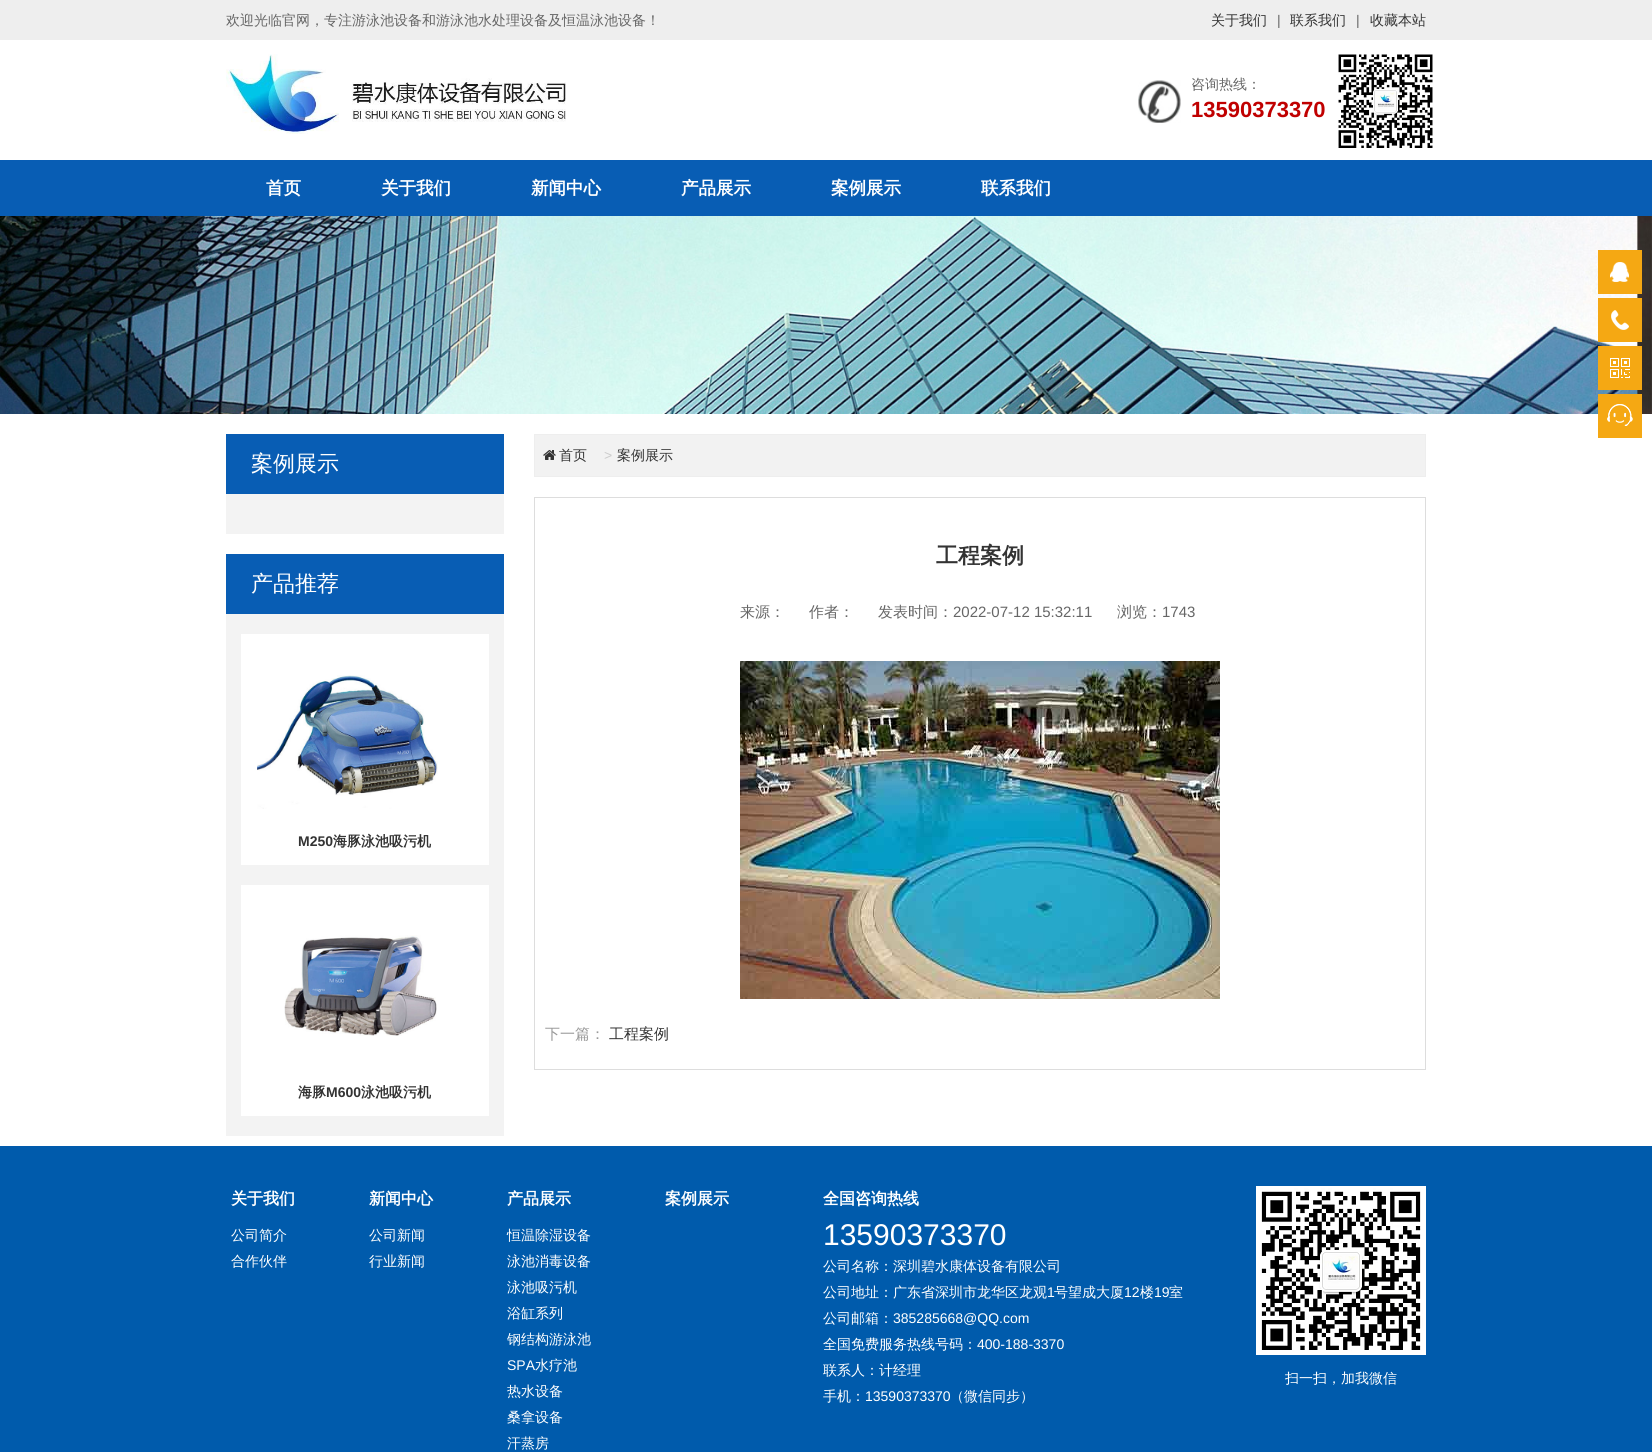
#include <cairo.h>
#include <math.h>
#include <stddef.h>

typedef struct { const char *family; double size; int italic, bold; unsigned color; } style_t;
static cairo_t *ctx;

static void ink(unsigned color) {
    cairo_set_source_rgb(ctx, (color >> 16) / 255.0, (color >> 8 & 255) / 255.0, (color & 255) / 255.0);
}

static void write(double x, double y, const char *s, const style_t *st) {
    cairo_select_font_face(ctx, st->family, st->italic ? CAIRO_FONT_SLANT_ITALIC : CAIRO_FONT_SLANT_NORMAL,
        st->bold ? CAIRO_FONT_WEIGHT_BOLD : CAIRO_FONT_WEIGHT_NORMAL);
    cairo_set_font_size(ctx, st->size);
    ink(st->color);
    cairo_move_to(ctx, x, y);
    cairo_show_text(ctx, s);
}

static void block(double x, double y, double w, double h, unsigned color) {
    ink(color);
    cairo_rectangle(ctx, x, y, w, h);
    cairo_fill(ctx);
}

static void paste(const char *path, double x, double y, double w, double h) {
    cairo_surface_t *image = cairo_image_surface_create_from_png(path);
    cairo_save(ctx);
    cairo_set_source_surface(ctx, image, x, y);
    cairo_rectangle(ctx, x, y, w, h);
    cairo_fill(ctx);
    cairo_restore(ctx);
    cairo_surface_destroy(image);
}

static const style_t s1 = {"WenQuanYi Zen Hei Medium", 14, 0, 0, 0x666666};
static const style_t s2 = {"WenQuanYi Zen Hei Medium", 14, 0, 0, 0x333333};
static const style_t s3 = {"Liberation Sans", 14, 0, 0, 0x666666};
static const style_t s4 = {"Liberation Sans", 22, 0, 1, 0xc00000};
static const style_t s5 = {"WenQuanYi Zen Hei", 17.5, 0, 1, 0xffffff};
static const style_t s6 = {"WenQuanYi Zen Hei Medium", 22, 0, 0, 0xffffff};
static const style_t s7 = {"Liberation Sans", 14, 0, 1, 0x333333};
static const style_t s8 = {"WenQuanYi Zen Hei", 14, 0, 1, 0x333333};
static const style_t s9 = {"Liberation Sans", 14, 0, 0, 0xcccccc};
static const style_t s10 = {"WenQuanYi Zen Hei", 22, 0, 1, 0x333333};
static const style_t s11 = {"WenQuanYi Zen Hei Medium", 15, 0, 0, 0x666666};
static const style_t s12 = {"Liberation Sans", 15, 0, 0, 0x666666};
static const style_t s13 = {"WenQuanYi Zen Hei Medium", 15, 0, 0, 0x999999};
static const style_t s14 = {"WenQuanYi Zen Hei Medium", 15, 0, 0, 0x333333};
static const style_t s15 = {"WenQuanYi Zen Hei", 16, 0, 1, 0xffffff};
static const style_t s16 = {"WenQuanYi Zen Hei Medium", 14, 0, 0, 0xffffff};
static const style_t s17 = {"Liberation Sans", 14, 0, 0, 0xffffff};
static const style_t s18 = {"Liberation Sans", 30, 0, 0, 0xffffff};

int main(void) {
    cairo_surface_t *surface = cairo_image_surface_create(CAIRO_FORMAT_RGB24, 1652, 1452);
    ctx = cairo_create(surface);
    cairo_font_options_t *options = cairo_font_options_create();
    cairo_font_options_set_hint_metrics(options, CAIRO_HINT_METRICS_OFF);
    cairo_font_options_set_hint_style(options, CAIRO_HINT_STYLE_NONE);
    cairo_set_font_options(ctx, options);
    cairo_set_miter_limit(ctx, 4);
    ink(0xffffff);
    cairo_paint(ctx);
    block(0, 0, 1652, 40, 0xeeeeee);
    write(226, 25, "欢迎光临官网，专注游泳池设备和游泳池水处理设备及恒温泳池设备！", &s1);
    write(1211, 25, "关于我们", &s2);
    write(1277, 25, "|", &s3);
    write(1290, 25, "联系我们", &s2);
    write(1356, 25, "|", &s3);
    write(1370, 25, "收藏本站", &s2);
    paste("pic1.png", 226, 54, 340, 80);
    paste("pic2.png", 1138, 80, 43, 43);
    write(1191, 89, "咨询热线：", &s1);
    write(1191, 117, "13590373370", &s4);
    paste("pic3.png", 1338, 54, 95, 94);
    block(0, 160, 1652, 56, 0x085db4);
    write(266, 194, "首页", &s5);
    write(381, 194, "关于我们", &s5);
    write(531, 194, "新闻中心", &s5);
    write(681, 194, "产品展示", &s5);
    write(831, 194, "案例展示", &s5);
    write(981, 194, "联系我们", &s5);
    paste("pic4.png", 0, 216, 1652, 198);
    block(226, 434, 278, 60, 0x085db4);
    write(251, 471, "案例展示", &s6);
    block(226, 494, 278, 40, 0xf3f3f3);
    block(226, 614, 278, 522, 0xf3f3f3);
    block(226, 554, 278, 60, 0x085db4);
    write(251, 591, "产品推荐", &s6);
    block(241, 634, 248, 231, 0xffffff);
    paste("pic5.png", 257, 675, 181, 134);
    write(298, 846, "M250", &s7);
    write(333, 846, "海豚泳池吸污机", &s8);
    block(241, 885, 248, 231, 0xffffff);
    paste("pic6.png", 284, 935, 153, 101);
    write(298, 1097, "海豚", &s8);
    write(326, 1097, "M600", &s7);
    write(361, 1097, "泳池吸污机", &s8);
    ink(0xf2f2f2);
    cairo_rectangle(ctx, 534.5, 434.5, 891, 42);
    cairo_fill_preserve(ctx);
    ink(0xeeeeee);
    cairo_set_line_width(ctx, 1);
    cairo_stroke(ctx);
    paste("pic7.png", 543, 450, 13, 10);
    write(559, 460, "首页", &s2);
    write(604, 460, ">", &s9);
    write(617, 460, "案例展示", &s2);
    cairo_rectangle(ctx, 534.5, 497.5, 891, 572);
    ink(0xdddddd);
    cairo_stroke(ctx);
    write(936, 563, "工程案例", &s10);
    write(740, 617, "来源：", &s11);
    write(809, 617, "作者：", &s11);
    write(878, 617, "发表时间：", &s11);
    write(953, 617, "2022-07-12 15:32:11", &s12);
    write(1117, 617, "浏览：", &s11);
    write(1162, 617, "1743", &s12);
    paste("pic8.png", 740, 661, 480, 338);
    write(545, 1039, "下一篇：", &s13);
    write(609, 1039, "工程案例", &s14);
    block(1598, 250, 44, 44, 0xf5a813);
    paste("pic9.png", 1610, 262, 19, 20);
    block(1598, 298, 44, 44, 0xf5a813);
    paste("pic10.png", 1611, 310, 18, 20);
    block(1598, 346, 44, 44, 0xf5a813);
    paste("pic11.png", 1610, 358, 20, 20);
    block(1598, 394, 44, 44, 0xf5a813);
    paste("pic12.png", 1607, 404, 26, 22);
    block(0, 1146, 1652, 306, 0x005bac);
    write(231, 1204, "关于我们", &s15);
    write(231, 1240, "公司简介", &s16);
    write(231, 1266, "合作伙伴", &s16);
    write(369, 1204, "新闻中心", &s15);
    write(369, 1240, "公司新闻", &s16);
    write(369, 1266, "行业新闻", &s16);
    write(507, 1204, "产品展示", &s15);
    write(507, 1240, "恒温除湿设备", &s16);
    write(507, 1266, "泳池消毒设备", &s16);
    write(507, 1292, "泳池吸污机", &s16);
    write(507, 1318, "浴缸系列", &s16);
    write(507, 1344, "钢结构游泳池", &s16);
    write(507, 1370, "SPA", &s17);
    write(535, 1370, "水疗池", &s16);
    write(507, 1396, "热水设备", &s16);
    write(507, 1422, "桑拿设备", &s16);
    write(507, 1448, "汗蒸房", &s16);
    write(665, 1204, "案例展示", &s15);
    write(823, 1204, "全国咨询热线", &s15);
    write(823, 1245, "13590373370", &s18);
    write(823, 1271, "公司名称：深圳碧水康体设备有限公司", &s16);
    write(823, 1297, "公司地址：广东省深圳市龙华区龙观", &s16);
    write(1047, 1297, "1", &s17);
    write(1054, 1297, "号望成大厦", &s16);
    write(1124, 1297, "12", &s17);
    write(1140, 1297, "楼", &s16);
    write(1154, 1297, "19", &s17);
    write(1169, 1297, "室", &s16);
    write(823, 1323, "公司邮箱：", &s16);
    write(893, 1323, "385285668@QQ.com", &s17);
    write(823, 1349, "全国免费服务热线号码：", &s16);
    write(977, 1349, "400-188-3370", &s17);
    write(823, 1375, "联系人：计经理", &s16);
    write(823, 1401, "手机：", &s16);
    write(865, 1401, "13590373370", &s17);
    write(950, 1401, "（微信同步）", &s16);
    paste("pic13.png", 1256, 1186, 170, 169);
    write(1285, 1383, "扫一扫，加我微信", &s16);
    cairo_surface_write_to_png(surface, "screenshot.png");
    cairo_font_options_destroy(options);
    cairo_destroy(ctx);
    cairo_surface_destroy(surface);
    return 0;
}
